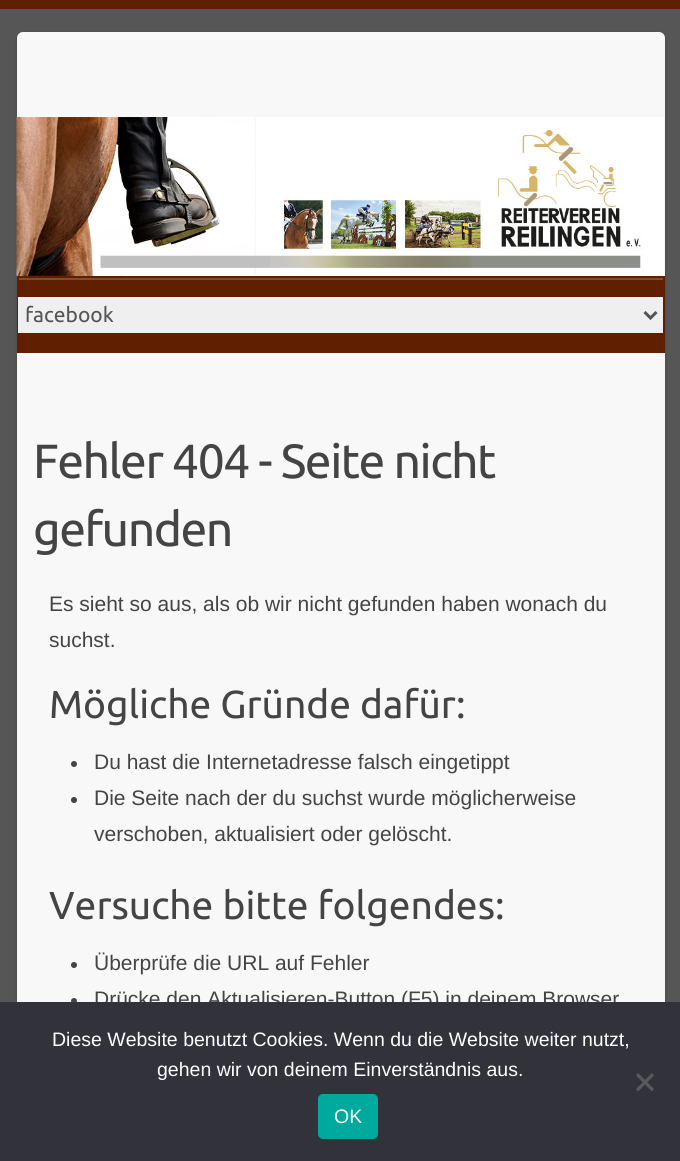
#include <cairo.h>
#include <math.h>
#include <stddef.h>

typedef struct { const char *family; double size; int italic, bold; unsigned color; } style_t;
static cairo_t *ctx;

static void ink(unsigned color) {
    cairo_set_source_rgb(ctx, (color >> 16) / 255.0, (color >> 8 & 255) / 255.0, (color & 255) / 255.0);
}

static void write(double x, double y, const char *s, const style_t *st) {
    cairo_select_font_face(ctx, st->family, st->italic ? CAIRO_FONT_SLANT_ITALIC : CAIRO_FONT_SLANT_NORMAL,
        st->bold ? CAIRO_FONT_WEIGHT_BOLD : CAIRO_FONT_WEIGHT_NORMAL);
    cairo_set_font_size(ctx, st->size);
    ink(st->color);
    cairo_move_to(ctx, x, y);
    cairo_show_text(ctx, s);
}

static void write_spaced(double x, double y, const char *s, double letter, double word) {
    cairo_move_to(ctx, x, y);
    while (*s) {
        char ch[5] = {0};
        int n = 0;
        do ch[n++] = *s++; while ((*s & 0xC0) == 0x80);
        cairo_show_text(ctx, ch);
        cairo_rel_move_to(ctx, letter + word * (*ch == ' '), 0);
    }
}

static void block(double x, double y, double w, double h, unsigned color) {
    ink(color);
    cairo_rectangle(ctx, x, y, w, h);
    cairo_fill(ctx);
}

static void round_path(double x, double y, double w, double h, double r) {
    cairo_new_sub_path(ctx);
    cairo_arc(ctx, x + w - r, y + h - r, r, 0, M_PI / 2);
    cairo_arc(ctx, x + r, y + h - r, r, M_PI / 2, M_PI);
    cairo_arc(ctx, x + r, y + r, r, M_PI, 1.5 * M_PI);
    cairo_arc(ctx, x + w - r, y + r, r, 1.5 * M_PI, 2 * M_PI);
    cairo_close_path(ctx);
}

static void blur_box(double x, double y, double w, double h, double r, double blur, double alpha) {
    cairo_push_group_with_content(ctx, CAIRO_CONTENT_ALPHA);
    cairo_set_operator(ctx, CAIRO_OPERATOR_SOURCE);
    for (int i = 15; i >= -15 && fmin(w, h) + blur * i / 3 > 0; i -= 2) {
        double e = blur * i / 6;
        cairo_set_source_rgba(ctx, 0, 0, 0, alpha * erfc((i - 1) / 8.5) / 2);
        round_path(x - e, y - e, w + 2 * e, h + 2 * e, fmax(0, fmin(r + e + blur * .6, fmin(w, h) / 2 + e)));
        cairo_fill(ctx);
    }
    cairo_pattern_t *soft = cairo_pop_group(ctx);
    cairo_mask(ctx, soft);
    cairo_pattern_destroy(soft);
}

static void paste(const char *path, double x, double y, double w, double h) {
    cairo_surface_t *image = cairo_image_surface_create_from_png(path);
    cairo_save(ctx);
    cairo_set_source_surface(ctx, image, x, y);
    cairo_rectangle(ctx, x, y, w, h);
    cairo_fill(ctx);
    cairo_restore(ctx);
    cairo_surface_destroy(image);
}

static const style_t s1 = {"Ubuntu", 21, 0, 0, 0x555555};
static const style_t s2 = {"Liberation Sans", 21, 0, 0, 0x444444};
static const style_t s3 = {"Ubuntu", 39, 0, 0, 0x444444};
static const style_t s4 = {"Liberation Sans", 19.5, 0, 0, 0xffffff};

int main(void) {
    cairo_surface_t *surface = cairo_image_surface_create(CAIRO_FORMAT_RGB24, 680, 1161);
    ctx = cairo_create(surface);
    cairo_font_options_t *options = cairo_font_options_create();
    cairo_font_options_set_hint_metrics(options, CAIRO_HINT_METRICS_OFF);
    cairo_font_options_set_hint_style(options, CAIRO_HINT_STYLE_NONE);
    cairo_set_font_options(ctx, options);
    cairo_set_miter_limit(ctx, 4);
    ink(0x565656);
    cairo_paint(ctx);
    block(0, 0, 680, 9, 0x602000);
    ink(0x000000);
    blur_box(17, 33, 648, 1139, 6, 1.5, 0.2);
    ink(0xf8f8f8);
    round_path(17, 32, 648, 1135, 6);
    cairo_fill(ctx);
    paste("pic1.png", 16, 117, 648, 159);
    block(19, 280, 644, 71, 0x602000);
    block(18, 278, 645, 2, 0x804d33);
    cairo_rectangle(ctx, 18, 277, 646, 75);
    ink(0x602000);
    cairo_stroke(ctx);
    block(18, 297, 645, 36, 0xefefef);
    cairo_new_path(ctx);
    cairo_move_to(ctx, 644.5, 312);
    cairo_line_to(ctx, 650.5, 318);
    cairo_line_to(ctx, 656.5, 312);
    ink(0x555555);
    cairo_set_line_width(ctx, 3);
    cairo_stroke(ctx);
    write(25, 322, "facebook", &s1);
    cairo_set_font_size(ctx, 48);
    ink(0x444444);
    write_spaced(33, 478, "Fehler 404 - Seite nicht", -1.5, 0);
    write_spaced(33, 546, "gefunden", -1.5, 0);
    write(49, 611, "Es sieht so aus, als ob wir nicht gefunden haben wonach du", &s2);
    write(49, 647, "suchst.", &s2);
    write(49, 718, "Mögliche Gründe dafür:", &s3);
    cairo_new_path(ctx);
    cairo_arc(ctx, 74, 764, 3, 0, 2 * M_PI);
    cairo_fill(ctx);
    write(94, 769, "Du hast die Internetadresse falsch eingetippt", &s2);
    cairo_new_path(ctx);
    cairo_arc(ctx, 74, 800, 3, 0, 2 * M_PI);
    cairo_fill(ctx);
    write(94, 805, "Die Seite nach der du suchst wurde möglicherweise", &s2);
    write(94, 841, "verschoben, aktualisiert oder gelöscht.", &s2);
    write(49, 919, "Versuche bitte folgendes:", &s3);
    cairo_new_path(ctx);
    cairo_arc(ctx, 74, 965, 3, 0, 2 * M_PI);
    cairo_fill(ctx);
    write(94, 970, "Überprüfe die URL auf Fehler", &s2);
    cairo_new_path(ctx);
    cairo_arc(ctx, 74, 1001, 3, 0, 2 * M_PI);
    cairo_fill(ctx);
    write(94, 1006, "Drücke den Aktualisieren-Button (F5) in deinem Browser", &s2);
    block(0, 1002, 680, 159, 0x32323a);
    write(52, 1046, "Diese Website benutzt Cookies. Wenn du die Website weiter nutzt,", &s4);
    write(157, 1076, "gehen wir von deinem Einverständnis aus.", &s4);
    ink(0x59595d);
    cairo_new_path(ctx);
    cairo_move_to(ctx, 652, 1073);
    cairo_line_to(ctx, 654, 1075.5);
    cairo_line_to(ctx, 638, 1091.5);
    cairo_line_to(ctx, 636, 1089);
    cairo_close_path(ctx);
    cairo_fill(ctx);
    cairo_new_path(ctx);
    cairo_move_to(ctx, 636, 1075.5);
    cairo_line_to(ctx, 638, 1073);
    cairo_line_to(ctx, 654, 1089);
    cairo_line_to(ctx, 652, 1091.5);
    cairo_close_path(ctx);
    cairo_fill(ctx);
    ink(0x00a99d);
    round_path(318, 1094, 60, 45, 5);
    cairo_fill(ctx);
    write(334, 1123, "OK", &s4);
    cairo_surface_write_to_png(surface, "screenshot.png");
    cairo_font_options_destroy(options);
    cairo_destroy(ctx);
    cairo_surface_destroy(surface);
    return 0;
}
